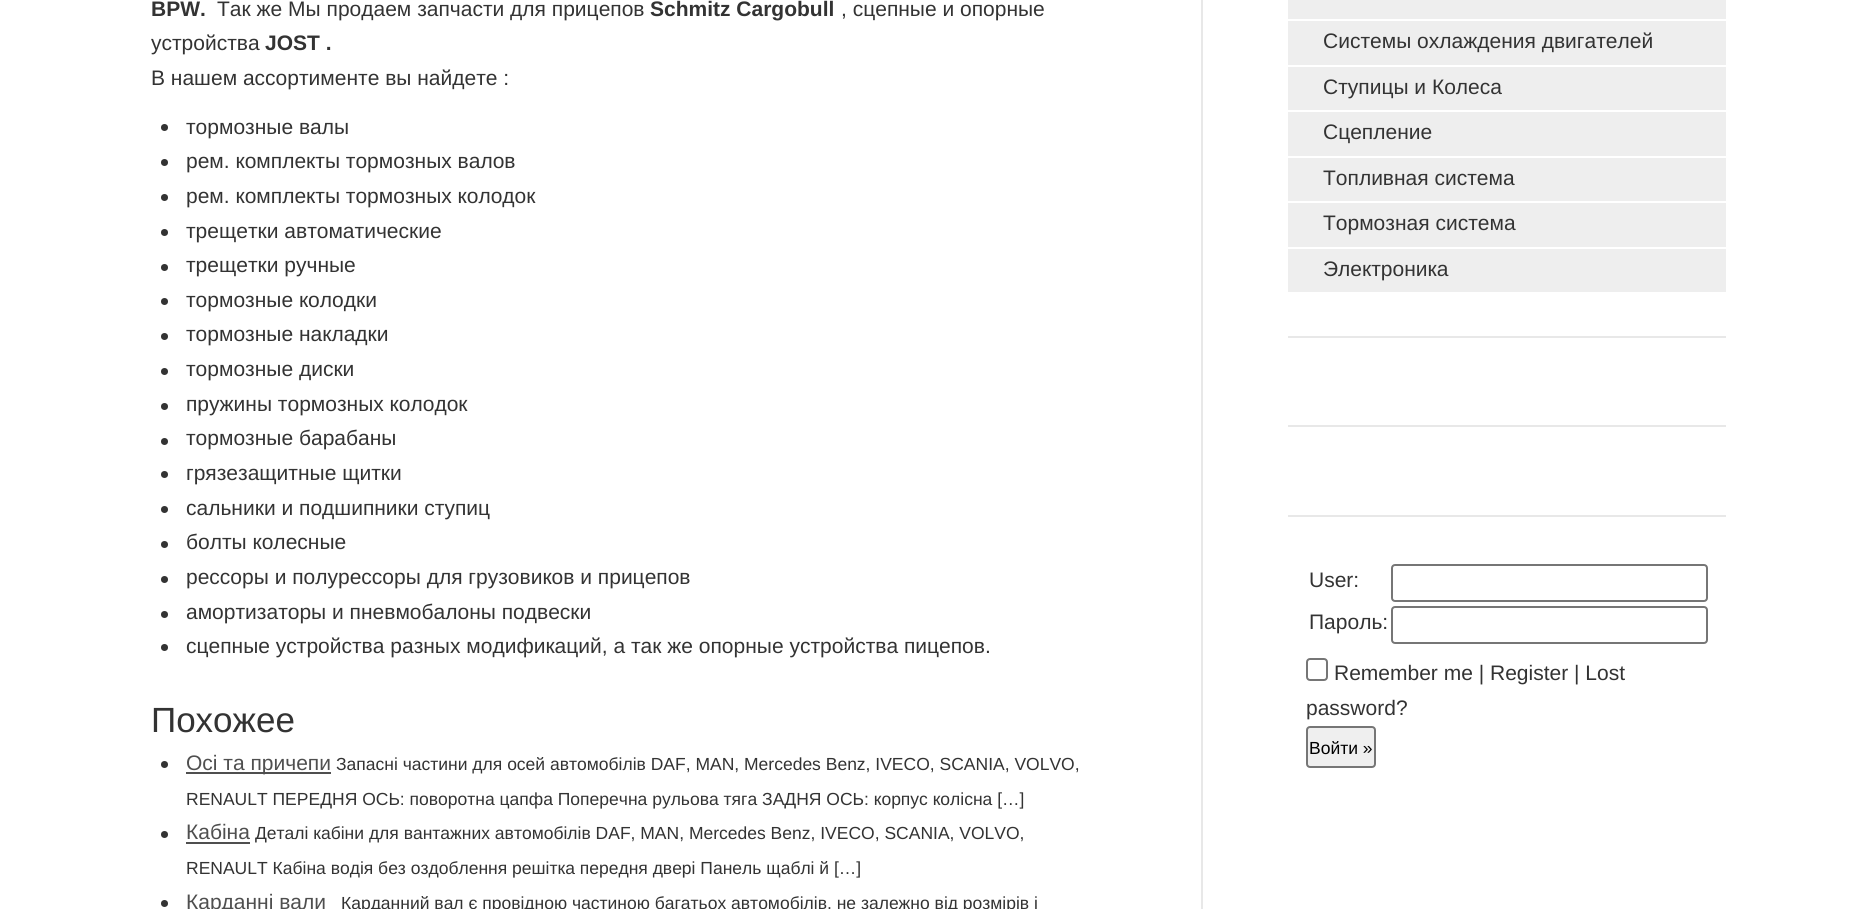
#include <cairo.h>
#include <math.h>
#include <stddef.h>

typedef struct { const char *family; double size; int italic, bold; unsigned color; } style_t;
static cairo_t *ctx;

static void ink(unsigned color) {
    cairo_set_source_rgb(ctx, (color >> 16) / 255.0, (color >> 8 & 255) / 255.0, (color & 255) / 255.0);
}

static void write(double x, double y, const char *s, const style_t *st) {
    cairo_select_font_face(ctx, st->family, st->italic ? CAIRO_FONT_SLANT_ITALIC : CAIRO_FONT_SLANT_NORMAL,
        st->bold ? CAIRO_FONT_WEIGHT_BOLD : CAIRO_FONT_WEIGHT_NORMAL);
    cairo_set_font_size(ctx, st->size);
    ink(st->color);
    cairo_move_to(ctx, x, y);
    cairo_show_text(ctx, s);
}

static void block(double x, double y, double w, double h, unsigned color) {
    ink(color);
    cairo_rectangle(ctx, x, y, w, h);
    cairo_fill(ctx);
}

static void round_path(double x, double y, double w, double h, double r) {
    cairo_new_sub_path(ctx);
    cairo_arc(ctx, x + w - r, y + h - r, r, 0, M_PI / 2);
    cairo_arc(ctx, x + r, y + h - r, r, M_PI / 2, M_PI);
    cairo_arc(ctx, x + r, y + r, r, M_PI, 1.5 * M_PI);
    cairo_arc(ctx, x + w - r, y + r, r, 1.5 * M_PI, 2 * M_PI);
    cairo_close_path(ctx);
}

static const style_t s1 = {"Liberation Sans", 21, 0, 1, 0x333333};
static const style_t s2 = {"Liberation Sans", 21, 0, 0, 0x333333};
static const style_t s3 = {"Liberation Sans", 35, 0, 0, 0x333333};
static const style_t s4 = {"Liberation Sans", 21, 0, 0, 0x4f4f4f};
static const style_t s5 = {"Liberation Sans", 17.5, 0, 0, 0x333333};
static const style_t s6 = {"Liberation Sans", 17.5, 0, 0, 0x000000};

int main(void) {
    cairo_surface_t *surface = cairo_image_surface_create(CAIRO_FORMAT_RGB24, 1876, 909);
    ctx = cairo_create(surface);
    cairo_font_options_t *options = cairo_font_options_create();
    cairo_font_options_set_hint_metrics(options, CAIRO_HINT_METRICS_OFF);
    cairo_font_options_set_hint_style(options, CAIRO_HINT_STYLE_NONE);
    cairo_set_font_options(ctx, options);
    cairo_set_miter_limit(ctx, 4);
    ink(0xffffff);
    cairo_paint(ctx);
    block(1201, 0, 2, 909, 0xe8e8e8);
    write(151, 16, "BPW.", &s1);
    write(217, 16, "Так же Мы продаем запчасти для прицепов", &s2);
    write(650, 16, "Schmitz Cargobull", &s1);
    write(841, 16, ", сцепные и опорные", &s2);
    write(151, 50, "устройства", &s2);
    write(265, 50, "JOST .", &s1);
    write(151, 85, "В нашем ассортименте вы найдете :", &s2);
    cairo_new_path(ctx);
    cairo_arc(ctx, 164.5, 127.5, 3.5, 0, 2 * M_PI);
    cairo_fill(ctx);
    write(186, 134, "тормозные валы", &s2);
    cairo_new_path(ctx);
    cairo_arc(ctx, 164.5, 162.5, 3.5, 0, 2 * M_PI);
    cairo_fill(ctx);
    write(186, 168, "рем. комплекты тормозных валов", &s2);
    cairo_new_path(ctx);
    cairo_arc(ctx, 164.5, 197.5, 3.5, 0, 2 * M_PI);
    cairo_fill(ctx);
    write(186, 203, "рем. комплекты тормозных колодок", &s2);
    cairo_new_path(ctx);
    cairo_arc(ctx, 164.5, 232.5, 3.5, 0, 2 * M_PI);
    cairo_fill(ctx);
    write(186, 238, "трещетки автоматические", &s2);
    cairo_new_path(ctx);
    cairo_arc(ctx, 164.5, 267.5, 3.5, 0, 2 * M_PI);
    cairo_fill(ctx);
    write(186, 272, "трещетки ручные", &s2);
    cairo_new_path(ctx);
    cairo_arc(ctx, 164.5, 301.5, 3.5, 0, 2 * M_PI);
    cairo_fill(ctx);
    write(186, 307, "тормозные колодки", &s2);
    cairo_new_path(ctx);
    cairo_arc(ctx, 164.5, 336.5, 3.5, 0, 2 * M_PI);
    cairo_fill(ctx);
    write(186, 341, "тормозные накладки", &s2);
    cairo_new_path(ctx);
    cairo_arc(ctx, 164.5, 371.5, 3.5, 0, 2 * M_PI);
    cairo_fill(ctx);
    write(186, 376, "тормозные диски", &s2);
    cairo_new_path(ctx);
    cairo_arc(ctx, 164.5, 406.5, 3.5, 0, 2 * M_PI);
    cairo_fill(ctx);
    write(186, 411, "пружины тормозных колодок", &s2);
    cairo_new_path(ctx);
    cairo_arc(ctx, 164.5, 441.5, 3.5, 0, 2 * M_PI);
    cairo_fill(ctx);
    write(186, 445, "тормозные барабаны", &s2);
    cairo_new_path(ctx);
    cairo_arc(ctx, 164.5, 474.5, 3.5, 0, 2 * M_PI);
    cairo_fill(ctx);
    write(186, 480, "грязезащитные щитки", &s2);
    cairo_new_path(ctx);
    cairo_arc(ctx, 164.5, 509.5, 3.5, 0, 2 * M_PI);
    cairo_fill(ctx);
    write(186, 515, "сальники и подшипники ступиц", &s2);
    cairo_new_path(ctx);
    cairo_arc(ctx, 164.5, 544.5, 3.5, 0, 2 * M_PI);
    cairo_fill(ctx);
    write(186, 549, "болты колесные", &s2);
    cairo_new_path(ctx);
    cairo_arc(ctx, 164.5, 579.5, 3.5, 0, 2 * M_PI);
    cairo_fill(ctx);
    write(186, 584, "рессоры и полурессоры для грузовиков и прицепов", &s2);
    cairo_new_path(ctx);
    cairo_arc(ctx, 164.5, 614.5, 3.5, 0, 2 * M_PI);
    cairo_fill(ctx);
    write(186, 619, "амортизаторы и пневмобалоны подвески", &s2);
    cairo_new_path(ctx);
    cairo_arc(ctx, 164.5, 647.5, 3.5, 0, 2 * M_PI);
    cairo_fill(ctx);
    write(186, 653, "сцепные устройства разных модификаций, а так же опорные устройства пицепов.", &s2);
    write(151, 732, "Похожее", &s3);
    cairo_new_path(ctx);
    cairo_arc(ctx, 164.5, 764.5, 3.5, 0, 2 * M_PI);
    cairo_fill(ctx);
    block(186, 772, 145, 2, 0x4f4f4f);
    write(186, 770, "Осі та причепи", &s4);
    write(336, 770, "Запасні частини для осей автомобілів DAF, MAN, Mercedes Benz, IVECO, SCANIA, VOLVO,", &s5);
    write(186, 805, "RENAULT ПЕРЕДНЯ ОСЬ: поворотна цапфа Поперечна рульова тяга ЗАДНЯ ОСЬ: корпус колісна […]", &s5);
    cairo_new_path(ctx);
    cairo_arc(ctx, 164.5, 834.5, 3.5, 0, 2 * M_PI);
    cairo_fill(ctx);
    write(186, 839, "Кабіна", &s4);
    block(186, 842, 64, 2, 0x4f4f4f);
    write(255, 839, "Деталі кабіни для вантажних автомобілів DAF, MAN, Mercedes Benz, IVECO, SCANIA, VOLVO,", &s5);
    write(186, 874, "RENAULT Кабіна водія без оздоблення решітка передня двері Панель щаблі й […]", &s5);
    cairo_new_path(ctx);
    cairo_arc(ctx, 164.5, 903.5, 3.5, 0, 2 * M_PI);
    cairo_fill(ctx);
    write(186, 909, "Карданні вали", &s4);
    write(341, 909, "Карданний вал є провідною частиною багатьох автомобілів, не залежно від розмірів і", &s5);
    block(1288, 336, 438, 2, 0xe8e8e8);
    block(1288, 0, 438, 19, 0xeeeeee);
    block(1288, 21, 438, 44, 0xeeeeee);
    write(1323, 48, "Системы охлаждения двигателей", &s2);
    block(1288, 67, 438, 43, 0xeeeeee);
    write(1323, 94, "Ступицы и Колеса", &s2);
    block(1288, 112, 438, 44, 0xeeeeee);
    write(1323, 139, "Сцепление", &s2);
    block(1288, 158, 438, 43, 0xeeeeee);
    write(1323, 185, "Топливная система", &s2);
    block(1288, 203, 438, 44, 0xeeeeee);
    write(1323, 230, "Тормозная система", &s2);
    block(1288, 249, 438, 43, 0xeeeeee);
    write(1323, 276, "Электроника", &s2);
    block(1288, 425, 438, 2, 0xe8e8e8);
    block(1288, 515, 438, 2, 0xe8e8e8);
    write(1309, 587, "User:", &s2);
    round_path(1392, 565, 315, 36, 3);
    ink(0x767676);
    cairo_stroke(ctx);
    write(1309, 629, "Пароль:", &s2);
    round_path(1392, 607, 315, 36, 3);
    ink(0x767676);
    cairo_stroke(ctx);
    round_path(1307, 659, 20, 21, 3);
    cairo_stroke(ctx);
    write(1334, 680, "Remember me | Register | Lost", &s2);
    write(1306, 715, "password?", &s2);
    ink(0xefefef);
    round_path(1307, 727, 68, 40, 3);
    cairo_fill_preserve(ctx);
    ink(0x767676);
    cairo_stroke(ctx);
    write(1309, 754, "Войти »", &s6);
    cairo_surface_write_to_png(surface, "screenshot.png");
    cairo_font_options_destroy(options);
    cairo_destroy(ctx);
    cairo_surface_destroy(surface);
    return 0;
}
